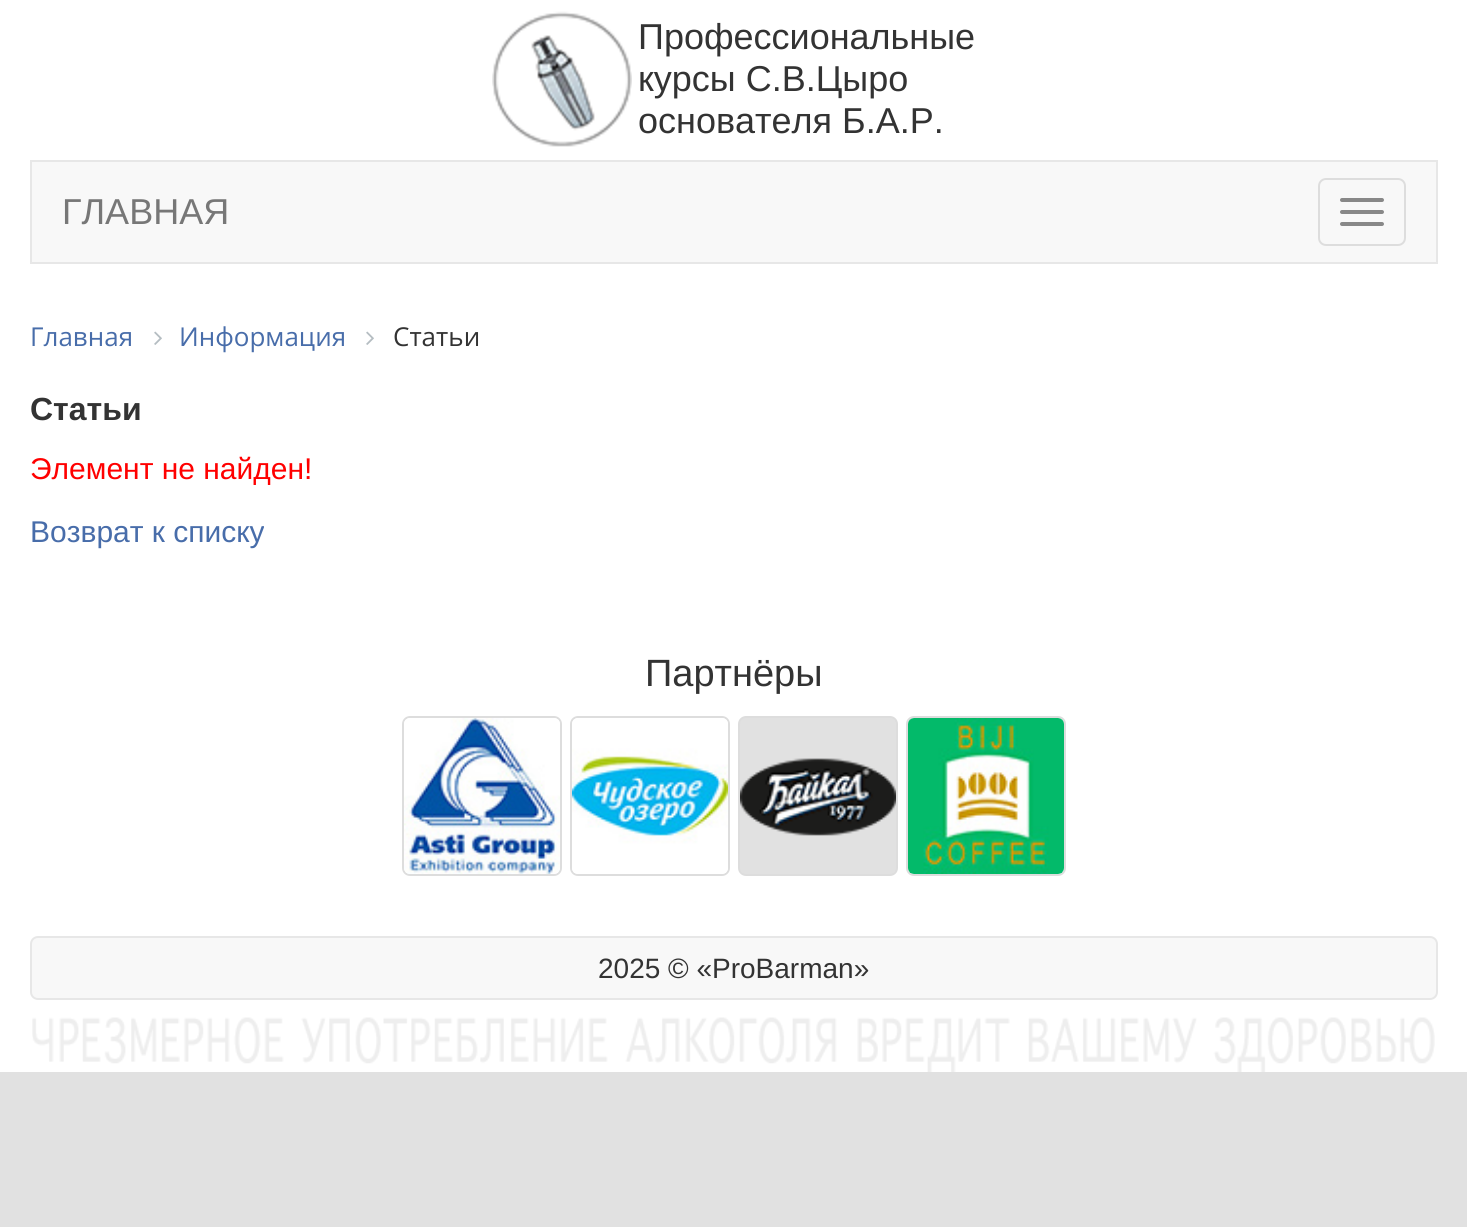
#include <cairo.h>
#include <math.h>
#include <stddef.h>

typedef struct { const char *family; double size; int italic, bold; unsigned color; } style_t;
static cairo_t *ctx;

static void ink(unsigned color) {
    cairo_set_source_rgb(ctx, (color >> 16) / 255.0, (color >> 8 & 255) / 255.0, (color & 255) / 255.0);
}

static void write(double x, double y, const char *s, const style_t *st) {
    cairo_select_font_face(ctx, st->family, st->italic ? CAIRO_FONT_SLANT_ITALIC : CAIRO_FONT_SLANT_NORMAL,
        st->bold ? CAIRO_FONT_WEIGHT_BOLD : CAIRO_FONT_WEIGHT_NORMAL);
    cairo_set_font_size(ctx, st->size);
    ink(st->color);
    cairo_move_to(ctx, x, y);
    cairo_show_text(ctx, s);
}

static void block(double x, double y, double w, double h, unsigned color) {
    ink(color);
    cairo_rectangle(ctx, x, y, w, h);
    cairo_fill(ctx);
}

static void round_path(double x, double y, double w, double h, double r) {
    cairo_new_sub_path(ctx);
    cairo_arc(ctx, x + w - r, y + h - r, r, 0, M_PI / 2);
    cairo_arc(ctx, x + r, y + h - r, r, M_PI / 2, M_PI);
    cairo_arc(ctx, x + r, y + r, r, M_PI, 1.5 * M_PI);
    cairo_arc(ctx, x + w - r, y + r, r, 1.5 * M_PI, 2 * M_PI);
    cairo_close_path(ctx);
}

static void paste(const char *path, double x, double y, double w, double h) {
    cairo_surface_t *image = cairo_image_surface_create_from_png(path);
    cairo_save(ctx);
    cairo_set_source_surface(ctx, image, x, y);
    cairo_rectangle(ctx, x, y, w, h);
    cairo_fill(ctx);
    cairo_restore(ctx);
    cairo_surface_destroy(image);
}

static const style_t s1 = {"Liberation Sans", 36, 0, 0, 0x333333};
static const style_t s2 = {"Liberation Sans", 36, 0, 0, 0x777777};
static const style_t s3 = {"Open Sans", 26, 0, 0, 0x486daa};
static const style_t s4 = {"Open Sans", 26, 0, 0, 0x333333};
static const style_t s5 = {"Liberation Sans", 32, 0, 1, 0x333333};
static const style_t s6 = {"Liberation Sans", 30, 0, 0, 0xff0000};
static const style_t s7 = {"Liberation Sans", 30, 0, 0, 0x486daa};
static const style_t s8 = {"Liberation Sans", 38, 0, 0, 0x333333};
static const style_t s9 = {"Liberation Sans", 28, 0, 0, 0x333333};

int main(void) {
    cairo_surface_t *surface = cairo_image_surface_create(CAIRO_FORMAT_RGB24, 1467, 1227);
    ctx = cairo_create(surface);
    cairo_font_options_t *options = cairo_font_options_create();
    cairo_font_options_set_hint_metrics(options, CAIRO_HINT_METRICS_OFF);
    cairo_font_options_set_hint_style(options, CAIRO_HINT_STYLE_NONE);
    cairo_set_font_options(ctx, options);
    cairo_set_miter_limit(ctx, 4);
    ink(0xe1e1e1);
    cairo_paint(ctx);
    block(0, 0, 1467, 1072, 0xffffff);
    paste("pic1.png", 492, 11, 140, 136);
    write(638, 49, "Профессиональные", &s1);
    write(638, 91, "курсы С.В.Цыро", &s1);
    write(638, 133, "основателя Б.А.Р.", &s1);
    ink(0xf8f8f8);
    cairo_rectangle(ctx, 31, 161, 1406, 102);
    cairo_fill_preserve(ctx);
    ink(0xe7e7e7);
    cairo_stroke(ctx);
    write(62, 224, "ГЛАВНАЯ", &s2);
    round_path(1319, 179, 86, 66, 7);
    ink(0xdddddd);
    cairo_stroke(ctx);
    ink(0x888888);
    round_path(1340, 198, 44, 4, 2);
    cairo_fill(ctx);
    round_path(1340, 210, 44, 4, 2);
    cairo_fill(ctx);
    round_path(1340, 222, 44, 4, 2);
    cairo_fill(ctx);
    write(30, 346, "Главная", &s3);
    paste("pic2.png", 154, 331, 8, 14);
    write(179, 346, "Информация", &s3);
    paste("pic2.png", 366, 331, 8, 14);
    write(393, 346, "Статьи", &s4);
    write(30, 420, "Статьи", &s5);
    write(30, 479, "Элемент не найден!", &s6);
    write(30, 542, "Возврат к списку", &s7);
    write(645, 686, "Партнёры", &s8);
    round_path(403, 717, 158, 158, 7);
    ink(0xdddddd);
    cairo_stroke(ctx);
    paste("pic3.png", 404, 718, 156, 156);
    round_path(571, 717, 158, 158, 7);
    cairo_stroke(ctx);
    paste("pic4.png", 572, 718, 156, 156);
    ink(0xe1e1e1);
    round_path(739, 717, 158, 158, 7);
    cairo_fill_preserve(ctx);
    ink(0xdddddd);
    cairo_stroke(ctx);
    paste("pic5.png", 740, 758, 156, 78);
    round_path(907, 717, 158, 158, 7);
    cairo_stroke(ctx);
    paste("pic6.png", 908, 718, 156, 156);
    ink(0xf8f8f8);
    round_path(31, 937, 1406, 62, 7);
    cairo_fill_preserve(ctx);
    ink(0xe7e7e7);
    cairo_stroke(ctx);
    write(598, 978, "2025 © «ProBarman»", &s9);
    paste("pic7.png", 32, 1017, 1403, 55);
    cairo_surface_write_to_png(surface, "screenshot.png");
    cairo_font_options_destroy(options);
    cairo_destroy(ctx);
    cairo_surface_destroy(surface);
    return 0;
}
